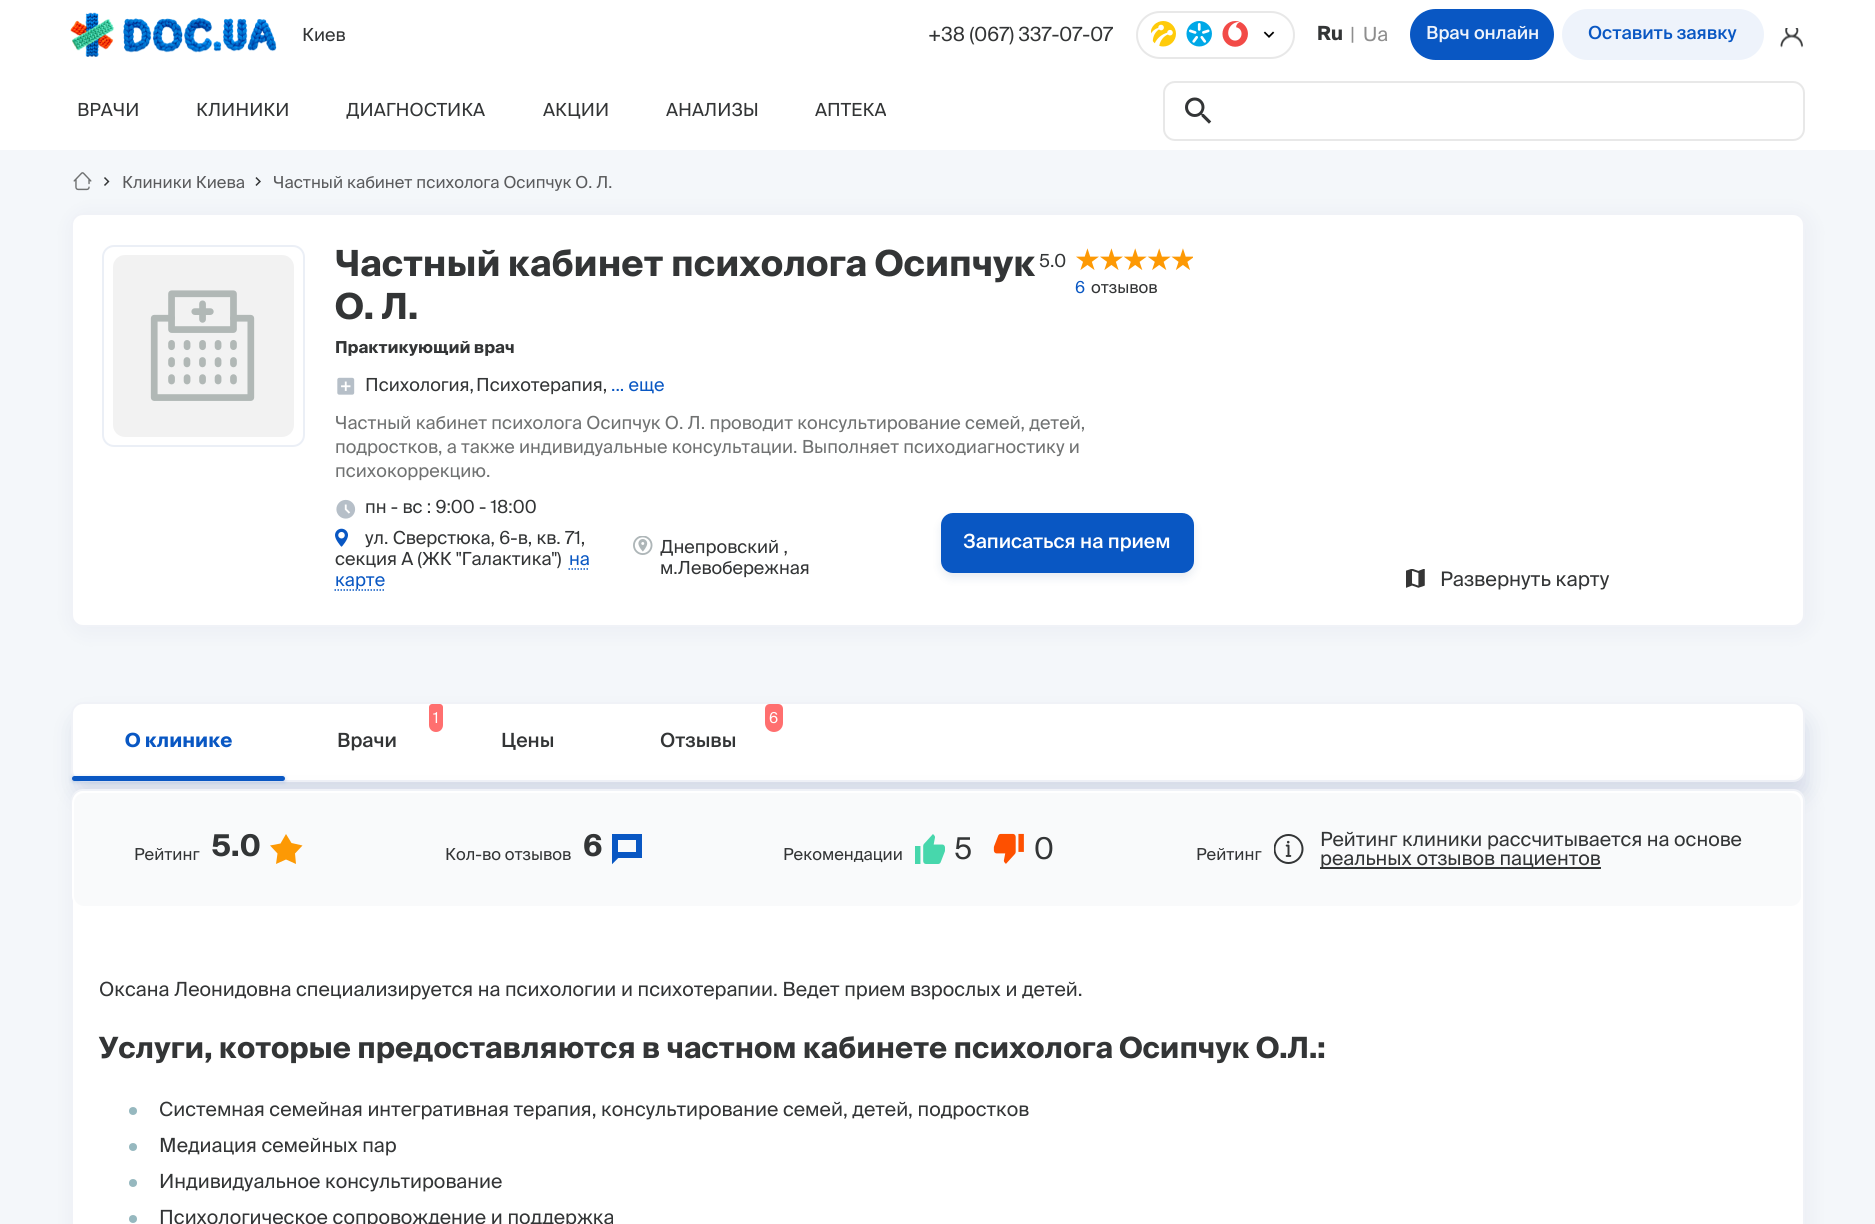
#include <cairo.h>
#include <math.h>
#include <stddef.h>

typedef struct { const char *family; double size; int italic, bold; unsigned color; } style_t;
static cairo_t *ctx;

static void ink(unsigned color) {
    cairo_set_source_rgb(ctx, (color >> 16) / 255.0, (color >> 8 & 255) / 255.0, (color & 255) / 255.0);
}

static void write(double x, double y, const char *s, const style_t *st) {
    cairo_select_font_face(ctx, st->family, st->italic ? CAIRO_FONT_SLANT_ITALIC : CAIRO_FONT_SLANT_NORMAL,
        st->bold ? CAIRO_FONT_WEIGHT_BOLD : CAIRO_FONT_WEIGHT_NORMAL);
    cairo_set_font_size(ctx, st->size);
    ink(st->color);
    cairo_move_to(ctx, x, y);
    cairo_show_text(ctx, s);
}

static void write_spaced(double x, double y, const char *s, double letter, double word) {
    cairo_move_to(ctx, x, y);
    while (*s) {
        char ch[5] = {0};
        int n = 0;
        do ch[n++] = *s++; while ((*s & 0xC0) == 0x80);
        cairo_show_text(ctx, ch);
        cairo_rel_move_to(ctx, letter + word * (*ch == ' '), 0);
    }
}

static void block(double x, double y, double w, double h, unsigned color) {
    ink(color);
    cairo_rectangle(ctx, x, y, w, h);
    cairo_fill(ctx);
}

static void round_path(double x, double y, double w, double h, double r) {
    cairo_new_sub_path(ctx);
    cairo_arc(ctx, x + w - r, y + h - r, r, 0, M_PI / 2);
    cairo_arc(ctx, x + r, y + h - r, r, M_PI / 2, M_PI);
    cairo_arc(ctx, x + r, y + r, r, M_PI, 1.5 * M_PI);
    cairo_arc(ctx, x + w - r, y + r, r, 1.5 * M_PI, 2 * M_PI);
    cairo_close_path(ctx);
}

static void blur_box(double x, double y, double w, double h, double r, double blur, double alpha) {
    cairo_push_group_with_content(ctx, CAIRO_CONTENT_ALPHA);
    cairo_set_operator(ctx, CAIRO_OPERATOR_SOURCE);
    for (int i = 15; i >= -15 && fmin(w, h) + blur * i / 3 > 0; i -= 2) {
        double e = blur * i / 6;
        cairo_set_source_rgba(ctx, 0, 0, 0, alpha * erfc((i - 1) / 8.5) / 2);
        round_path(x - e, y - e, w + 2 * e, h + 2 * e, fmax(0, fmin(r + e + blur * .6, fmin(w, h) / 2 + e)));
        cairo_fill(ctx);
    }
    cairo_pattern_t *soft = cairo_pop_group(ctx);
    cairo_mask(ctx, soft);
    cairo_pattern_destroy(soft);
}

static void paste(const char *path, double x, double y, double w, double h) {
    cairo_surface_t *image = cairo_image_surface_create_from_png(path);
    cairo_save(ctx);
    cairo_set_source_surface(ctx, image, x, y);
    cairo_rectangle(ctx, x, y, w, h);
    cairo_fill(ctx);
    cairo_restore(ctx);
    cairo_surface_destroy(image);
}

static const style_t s1 = {"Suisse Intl", 18, 0, 0, 0x333536};
static const style_t s2 = {"Suisse Intl", 19.5, 0, 0, 0x333536};
static const style_t s3 = {"Suisse Intl", 19.5, 0, 1, 0x333536};
static const style_t s4 = {"Suisse Intl", 19.5, 0, 0, 0x8e8e8e};
static const style_t s5 = {"Suisse Intl Medium", 18, 0, 0, 0xeef3fb};
static const style_t s6 = {"Suisse Intl Medium", 18, 0, 0, 0x0957c3};
static const style_t s7 = {"Suisse Intl", 16.5, 0, 0, 0x5a5b5d};
static const style_t s8 = {"Suisse Intl", 36, 0, 1, 0x333536};
static const style_t s9 = {"Suisse Intl", 16.5, 0, 1, 0x333536};
static const style_t s10 = {"Suisse Intl", 16.5, 0, 0, 0x0957c3};
static const style_t s11 = {"Suisse Intl", 16.5, 0, 0, 0x333536};
static const style_t s12 = {"Suisse Intl", 18, 0, 0, 0x0957c3};
static const style_t s13 = {"Suisse Intl", 18, 0, 0, 0x707272};
static const style_t s14 = {"Suisse Intl Medium", 19.5, 0, 0, 0xffffff};
static const style_t s15 = {"Suisse Intl", 20, 0, 0, 0x333536};
static const style_t s16 = {"Suisse Intl", 19.5, 0, 1, 0x0957c3};
static const style_t s17 = {"Suisse Intl", 15, 0, 0, 0xffffff};
static const style_t s18 = {"Suisse Intl Medium", 19.5, 0, 0, 0x333536};
static const style_t s19 = {"Suisse Intl", 30, 0, 1, 0x333536};
static const style_t s20 = {"Suisse Intl", 30, 0, 0, 0x333536};
static const style_t s21 = {"Suisse Intl", 29.25, 0, 1, 0x333536};

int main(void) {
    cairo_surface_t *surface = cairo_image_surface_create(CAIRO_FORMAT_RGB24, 1875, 1224);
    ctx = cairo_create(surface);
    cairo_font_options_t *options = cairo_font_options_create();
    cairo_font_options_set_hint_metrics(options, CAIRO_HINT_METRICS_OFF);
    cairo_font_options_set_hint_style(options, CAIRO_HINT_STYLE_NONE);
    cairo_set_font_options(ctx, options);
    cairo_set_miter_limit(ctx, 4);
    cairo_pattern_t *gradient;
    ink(0xf4f7fa);
    cairo_paint(ctx);
    block(0, 0, 1875, 150, 0xffffff);
    paste("pic1.png", 70, 12, 207, 45);
    write(302, 41, "Киев", &s1);
    write(928, 41, "+38 (067) 337-07-07", &s2);
    round_path(1137, 12, 157, 46, 23);
    ink(0xe8e8e8);
    cairo_stroke(ctx);
    paste("pic2.png", 1151, 21, 97, 26);
    paste("pic3.png", 1263, 31, 12, 7);
    write(1317, 40, "Ru", &s3);
    write(1350, 41, "|", &s4);
    write(1363, 41, "Ua", &s4);
    ink(0x0957c3);
    round_path(1410, 9, 144, 51, 25.5);
    cairo_fill(ctx);
    write(1426, 39, "Врач онлайн", &s5);
    round_path(1562, 9, 202, 51, 25.5);
    cairo_fill(ctx);
    write(1588, 39, "Оставить заявку", &s6);
    paste("pic4.png", 1780, 28, 24, 20);
    write(77, 116, "ВРАЧИ", &s1);
    write(196, 116, "КЛИНИКИ", &s1);
    write(346, 116, "ДИАГНОСТИКА", &s1);
    write(543, 116, "АКЦИИ", &s1);
    write(666, 116, "АНАЛИЗЫ", &s1);
    write(815, 116, "АПТЕКА", &s1);
    round_path(1164, 82, 640, 58, 11);
    ink(0xe8e8e8);
    cairo_stroke(ctx);
    paste("pic5.png", 1185, 97, 27, 27);
    paste("pic6.png", 73, 172, 19, 19);
    paste("pic7.png", 104, 177, 6, 9);
    write(122, 188, "Клиники Киева", &s7);
    paste("pic8.png", 255, 177, 6, 9);
    write(273, 188, "Частный кабинет психолога Осипчук О. Л.", &s7);
    ink(0x808eb8);
    blur_box(74, 216, 1734, 414, 12, 11, 0.1);
    ink(0xffffff);
    round_path(71, 213, 1734, 414, 12);
    cairo_fill(ctx);
    round_path(72, 214, 1732, 412, 11);
    cairo_set_source_rgba(ctx, 0.129, 0.227, 0.522, 0.07);
    cairo_stroke(ctx);
    round_path(103, 246, 201, 200, 11);
    ink(0xebeff6);
    cairo_stroke(ctx);
    paste("pic9.png", 113, 255, 181, 182);
    write(335, 276, "Частный кабинет психолога Осипчук", &s8);
    write(335, 319, "О. Л.", &s8);
    write(335, 353, "Практикующий врач", &s9);
    write(1039, 267, "5.0", &s1);
    cairo_select_font_face(ctx, "DejaVu Sans", CAIRO_FONT_SLANT_NORMAL, CAIRO_FONT_WEIGHT_NORMAL);
    cairo_set_font_size(ctx, 30);
    gradient = cairo_pattern_create_linear(1074, 261, 1193, 261);
    cairo_pattern_add_color_stop_rgba(gradient, 1, 0.992, 0.6, 0.016, 1);
    cairo_pattern_add_color_stop_rgba(gradient, 1, 1, 1, 1, 1);
    cairo_set_source(ctx, gradient);
    cairo_pattern_destroy(gradient);
    write_spaced(1074, 270, "★★★★★", -3, 0);
    write(1075, 293, "6", &s10);
    write(1091, 293, "отзывов", &s11);
    paste("pic10.png", 337, 377, 18, 18);
    write(365, 391, "Психология,", &s1);
    write(476, 391, "Психотерапия,", &s1);
    write(611, 391, "... еще", &s12);
    write(335, 429, "Частный кабинет психолога Осипчук О. Л. проводит консультирование семей, детей,", &s13);
    write(335, 453, "подростков, а также индивидуальные консультации. Выполняет психодиагностику и", &s13);
    write(335, 477, "психокоррекцию.", &s13);
    paste("pic11.png", 336, 499, 20, 20);
    write(365, 513, "пн - вс : 9:00 - 18:00", &s1);
    paste("pic12.png", 335, 528, 13, 19);
    write(365, 544, "ул. Сверстюка, 6-в, кв. 71,", &s1);
    write(335, 565, "секция А (ЖК \"Галактика\")", &s1);
    write(569, 565, "на", &s12);
    cairo_new_path(ctx);
    cairo_move_to(ctx, 568.5, 569);
    cairo_line_to(ctx, 589.5, 569);
    cairo_set_line_width(ctx, 1.5);
    cairo_set_dash(ctx, (double[]){1.5, 1.5}, 2, 0);
    cairo_stroke(ctx);
    cairo_new_path(ctx);
    cairo_move_to(ctx, 334.5, 590);
    cairo_line_to(ctx, 384, 590);
    cairo_stroke(ctx);
    write(335, 586, "карте", &s12);
    paste("pic13.png", 633, 536, 20, 19);
    write(660, 553, "Днепровский ,", &s1);
    write(660, 574, "м.Левобережная", &s1);
    ink(0x0e3770);
    blur_box(941, 518, 253, 60, 12, 4.5, 0.1);
    ink(0x0957c3);
    round_path(941, 513, 253, 60, 12);
    cairo_fill(ctx);
    write(963, 548, "Записаться на прием", &s14);
    paste("pic14.png", 1406, 569, 19, 19);
    write(1440, 586, "Развернуть карту", &s15);
    ink(0x808eb8);
    blur_box(74, 717, 1734, 80, 12, 11, 0.25);
    ink(0xffffff);
    round_path(71, 702, 1734, 80, 12);
    cairo_fill(ctx);
    round_path(72, 703, 1732, 78, 11);
    cairo_set_source_rgba(ctx, 0.129, 0.227, 0.522, 0.07);
    cairo_set_line_width(ctx, 2);
    cairo_set_dash(ctx, NULL, 0, 0);
    cairo_stroke(ctx);
    write(125, 747, "О клинике", &s16);
    ink(0x0957c3);
    blur_box(72, 777, 213, 5, 2.5, 2, 0.2);
    ink(0x808eb8);
    blur_box(74, 792, 1734, 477, 12, 11, 0.1);
    ink(0x0957c3);
    round_path(72, 776, 213, 5, 2.5);
    cairo_fill(ctx);
    ink(0xff6f6f);
    cairo_new_path(ctx);
    cairo_move_to(ctx, 432, 704);
    cairo_line_to(ctx, 440, 704);
    cairo_curve_to(ctx, 441.5, 704, 443, 705.5, 443, 707);
    cairo_line_to(ctx, 443, 725);
    cairo_curve_to(ctx, 443, 729, 440, 732, 436, 732);
    cairo_curve_to(ctx, 432, 732, 429, 729, 429, 725);
    cairo_line_to(ctx, 429, 707);
    cairo_curve_to(ctx, 429, 705.5, 430.5, 704, 432, 704);
    cairo_close_path(ctx);
    cairo_fill(ctx);
    write(433, 723, "1", &s17);
    write(337, 747, "Врачи", &s18);
    write(501, 747, "Цены", &s18);
    ink(0xff6f6f);
    cairo_new_path(ctx);
    cairo_move_to(ctx, 770, 704);
    cairo_line_to(ctx, 778, 704);
    cairo_curve_to(ctx, 781, 704, 783, 706, 783, 709);
    cairo_line_to(ctx, 783, 723);
    cairo_curve_to(ctx, 783, 728, 779, 732, 774, 732);
    cairo_curve_to(ctx, 769, 732, 765, 728, 765, 723);
    cairo_line_to(ctx, 765, 709);
    cairo_curve_to(ctx, 765, 706, 767, 704, 770, 704);
    cairo_close_path(ctx);
    cairo_fill(ctx);
    write(769, 723, "6", &s17);
    write(660, 747, "Отзывы", &s18);
    ink(0xffffff);
    round_path(71, 789, 1734, 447, 12);
    cairo_fill(ctx);
    round_path(72, 790, 1732, 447, 11);
    cairo_set_source_rgba(ctx, 0.129, 0.227, 0.522, 0.07);
    cairo_stroke(ctx);
    ink(0xf9fafb);
    round_path(73, 792, 1729, 115, 11);
    cairo_fill_preserve(ctx);
    ink(0xffffff);
    cairo_stroke(ctx);
    write(134, 860, "Рейтинг", &s11);
    write(211, 856, "5.0", &s19);
    ink(0xfd9904);
    cairo_new_path(ctx);
    cairo_move_to(ctx, 302.5, 845.5);
    cairo_line_to(ctx, 291.5, 843);
    cairo_line_to(ctx, 286, 834);
    cairo_line_to(ctx, 280.5, 843.5);
    cairo_line_to(ctx, 270, 845.5);
    cairo_line_to(ctx, 277.5, 853.5);
    cairo_line_to(ctx, 276, 864);
    cairo_line_to(ctx, 286, 859.5);
    cairo_line_to(ctx, 296, 864);
    cairo_line_to(ctx, 295, 853.5);
    cairo_close_path(ctx);
    cairo_fill(ctx);
    write(445, 860, "Кол-во отзывов", &s11);
    write(583, 856, "6", &s19);
    cairo_new_path(ctx);
    cairo_move_to(ctx, 618, 855);
    cairo_line_to(ctx, 617, 855);
    cairo_line_to(ctx, 615, 857);
    cairo_line_to(ctx, 615, 837);
    cairo_line_to(ctx, 639, 837);
    cairo_line_to(ctx, 639, 855);
    cairo_close_path(ctx);
    ink(0x0957c3);
    cairo_set_line_width(ctx, 6);
    cairo_stroke(ctx);
    write(783, 860, "Рекомендации", &s11);
    paste("pic15.png", 915, 834, 30, 30);
    write(954, 859, "5", &s20);
    paste("pic16.png", 993, 833, 31, 31);
    write(1034, 859, "0", &s20);
    write(1196, 860, "Рейтинг", &s11);
    paste("pic17.png", 1274, 834, 30, 30);
    write(1320, 846, "Рейтинг клиники рассчитывается на основе", &s2);
    block(1320, 867, 281, 2, 0x333536);
    write(1320, 865, "реальных отзывов пациентов", &s2);
    write(99, 996, "Оксана Леонидовна специализируется на психологии и психотерапии. Ведет прием взрослых и детей.", &s2);
    write(99, 1058, "Услуги, которые предоставляются в частном кабинете психолога Осипчук О.Л.:", &s21);
    ink(0x96b8bf);
    cairo_new_path(ctx);
    cairo_arc(ctx, 133, 1111, 4, 0, 2 * M_PI);
    cairo_fill(ctx);
    write(159, 1116, "Системная семейная интегративная терапия, консультирование семей, детей, подростков", &s2);
    ink(0x96b8bf);
    cairo_new_path(ctx);
    cairo_arc(ctx, 133, 1147, 4, 0, 2 * M_PI);
    cairo_fill(ctx);
    write(159, 1152, "Медиация семейных пар", &s2);
    ink(0x96b8bf);
    cairo_new_path(ctx);
    cairo_arc(ctx, 133, 1183, 4, 0, 2 * M_PI);
    cairo_fill(ctx);
    write(159, 1188, "Индивидуальное консультирование", &s2);
    ink(0x96b8bf);
    cairo_new_path(ctx);
    cairo_arc(ctx, 133, 1219, 4, 0, 2 * M_PI);
    cairo_fill(ctx);
    write(159, 1224, "Психологическое сопровождение и поддержка", &s2);
    cairo_surface_write_to_png(surface, "screenshot.png");
    cairo_font_options_destroy(options);
    cairo_destroy(ctx);
    cairo_surface_destroy(surface);
    return 0;
}
